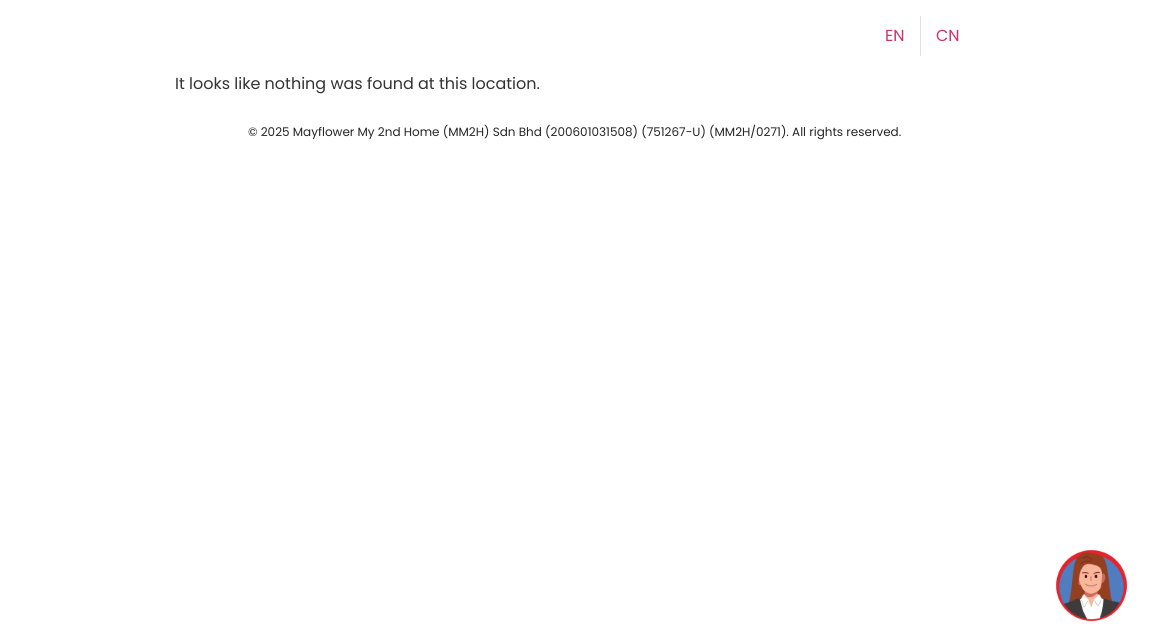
#include <cairo.h>
#include <math.h>
#include <stddef.h>

typedef struct { const char *family; double size; int italic, bold; unsigned color; } style_t;
static cairo_t *ctx;

static void ink(unsigned color) {
    cairo_set_source_rgb(ctx, (color >> 16) / 255.0, (color >> 8 & 255) / 255.0, (color & 255) / 255.0);
}

static void write(double x, double y, const char *s, const style_t *st) {
    cairo_select_font_face(ctx, st->family, st->italic ? CAIRO_FONT_SLANT_ITALIC : CAIRO_FONT_SLANT_NORMAL,
        st->bold ? CAIRO_FONT_WEIGHT_BOLD : CAIRO_FONT_WEIGHT_NORMAL);
    cairo_set_font_size(ctx, st->size);
    ink(st->color);
    cairo_move_to(ctx, x, y);
    cairo_show_text(ctx, s);
}

static void block(double x, double y, double w, double h, unsigned color) {
    ink(color);
    cairo_rectangle(ctx, x, y, w, h);
    cairo_fill(ctx);
}

static void paste(const char *path, double x, double y, double w, double h) {
    cairo_surface_t *image = cairo_image_surface_create_from_png(path);
    cairo_save(ctx);
    cairo_set_source_surface(ctx, image, x, y);
    cairo_rectangle(ctx, x, y, w, h);
    cairo_fill(ctx);
    cairo_restore(ctx);
    cairo_surface_destroy(image);
}

static const style_t s1 = {"Poppins", 16, 0, 0, 0xcc3366};
static const style_t s2 = {"Poppins", 16, 0, 0, 0x333333};
static const style_t s3 = {"Poppins", 12, 0, 0, 0x252525};

int main(void) {
    cairo_surface_t *surface = cairo_image_surface_create(CAIRO_FORMAT_RGB24, 1149, 643);
    ctx = cairo_create(surface);
    cairo_font_options_t *options = cairo_font_options_create();
    cairo_font_options_set_hint_metrics(options, CAIRO_HINT_METRICS_OFF);
    cairo_font_options_set_hint_style(options, CAIRO_HINT_STYLE_NONE);
    cairo_set_font_options(ctx, options);
    cairo_set_miter_limit(ctx, 4);
    ink(0xffffff);
    cairo_paint(ctx);
    block(920, 16, 1, 40, 0xe1e1e1);
    write(885, 41, "EN", &s1);
    write(936, 41, "CN", &s1);
    write(175, 89, "It looks like nothing was found at this location.", &s2);
    write(248, 136, "© 2025 Mayflower My 2nd Home (MM2H) Sdn Bhd (200601031508) (751267-U) (MM2H/0271). All rights reserved.", &s3);
    paste("pic1.png", 1056, 549, 71, 73);
    cairo_surface_write_to_png(surface, "screenshot.png");
    cairo_font_options_destroy(options);
    cairo_destroy(ctx);
    cairo_surface_destroy(surface);
    return 0;
}
